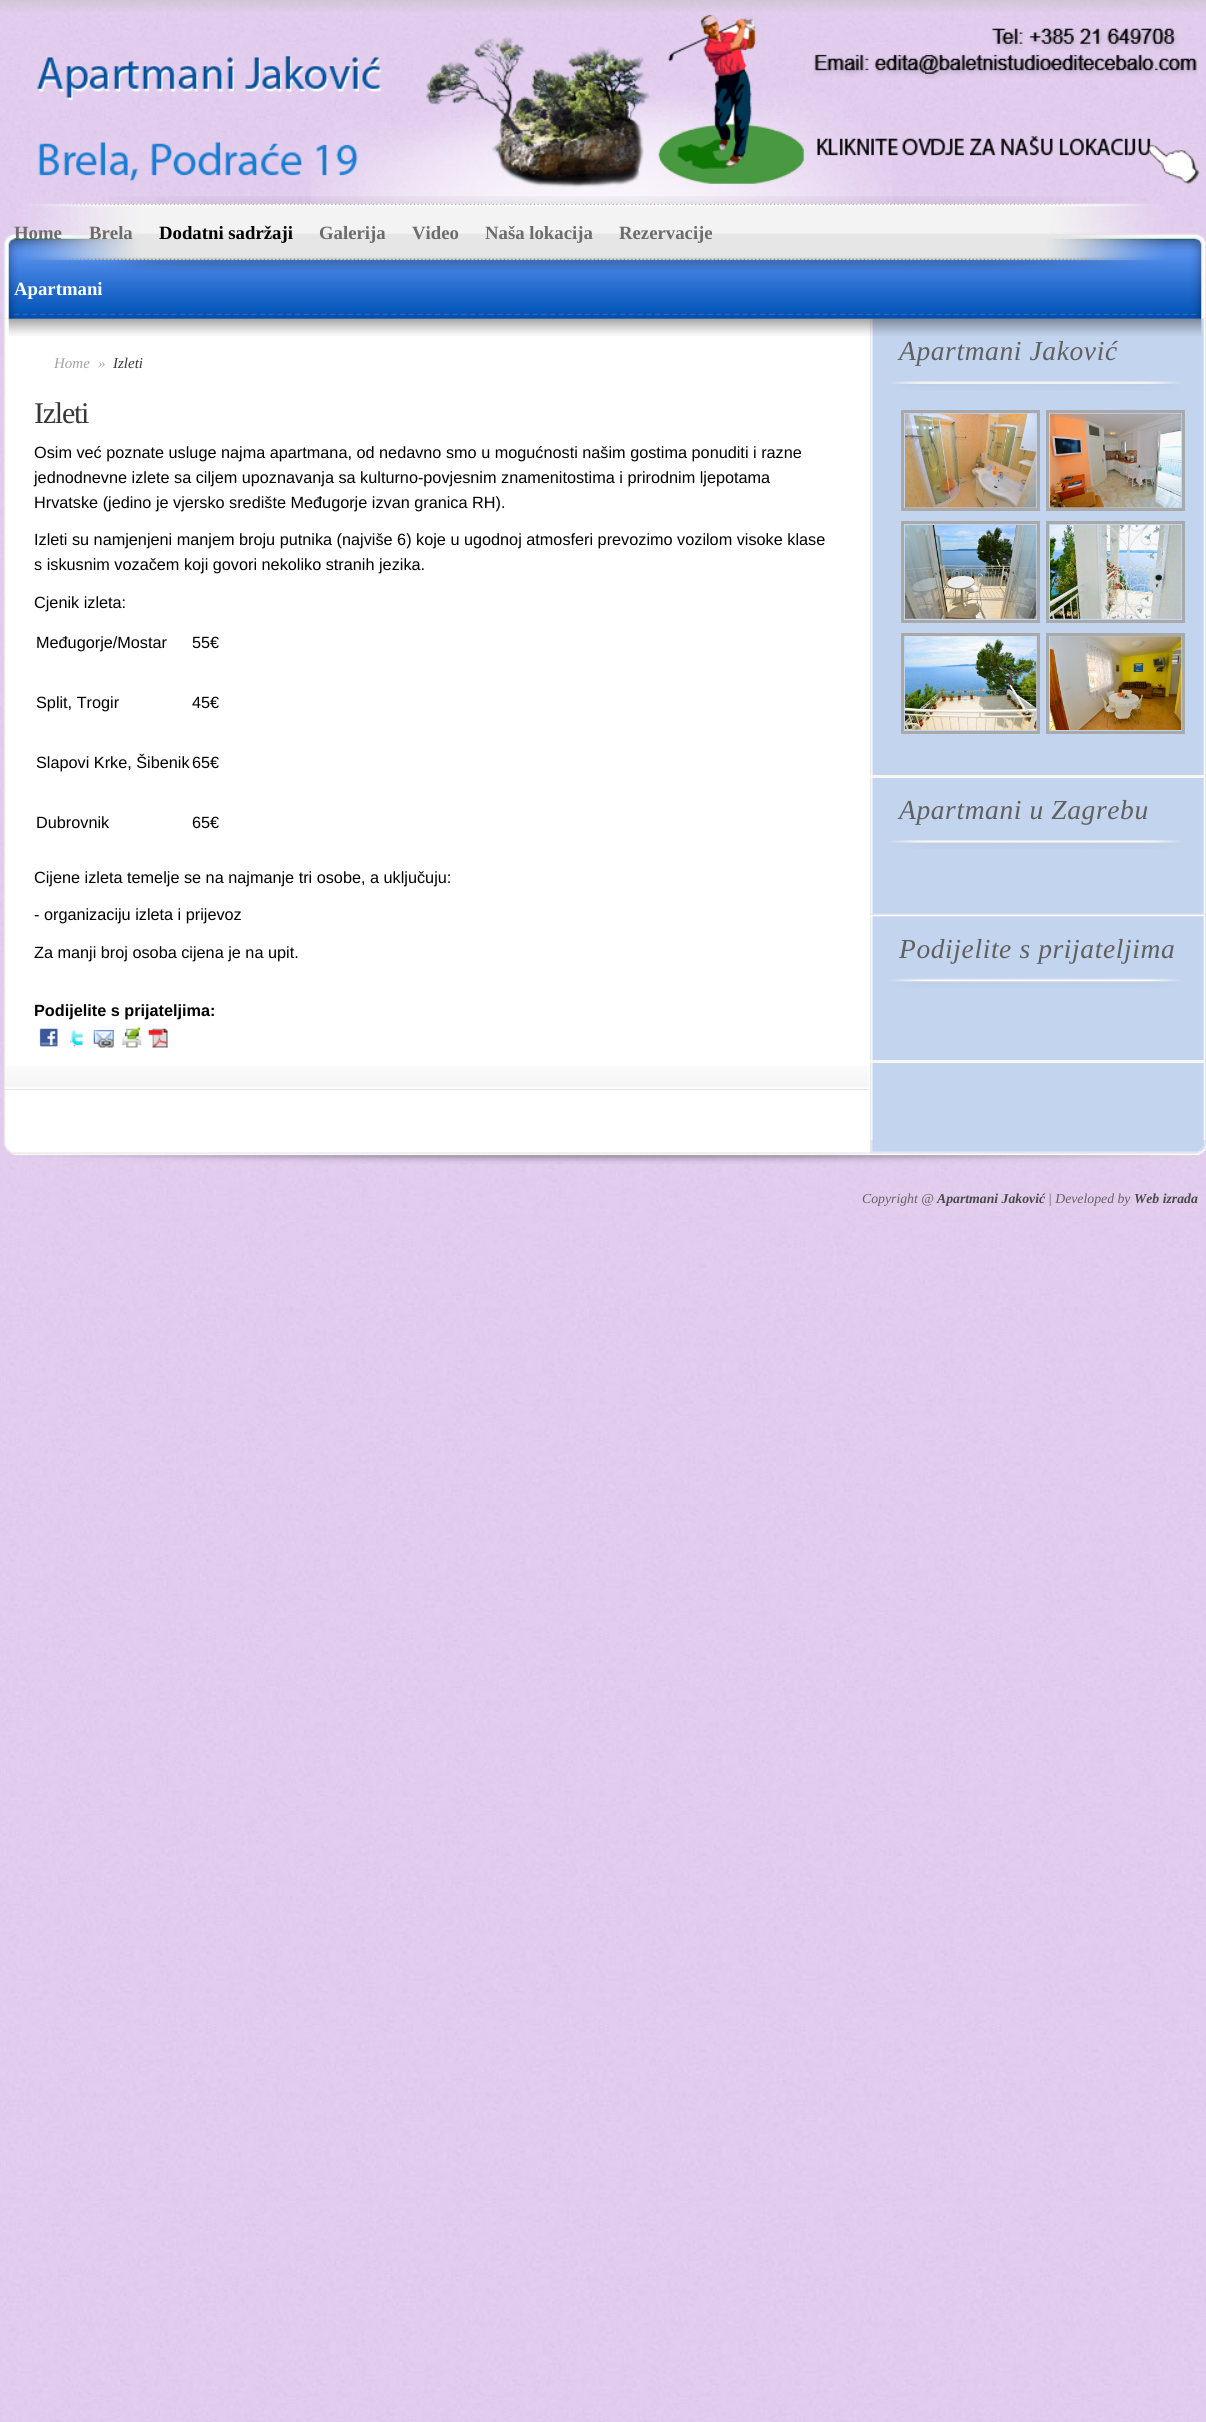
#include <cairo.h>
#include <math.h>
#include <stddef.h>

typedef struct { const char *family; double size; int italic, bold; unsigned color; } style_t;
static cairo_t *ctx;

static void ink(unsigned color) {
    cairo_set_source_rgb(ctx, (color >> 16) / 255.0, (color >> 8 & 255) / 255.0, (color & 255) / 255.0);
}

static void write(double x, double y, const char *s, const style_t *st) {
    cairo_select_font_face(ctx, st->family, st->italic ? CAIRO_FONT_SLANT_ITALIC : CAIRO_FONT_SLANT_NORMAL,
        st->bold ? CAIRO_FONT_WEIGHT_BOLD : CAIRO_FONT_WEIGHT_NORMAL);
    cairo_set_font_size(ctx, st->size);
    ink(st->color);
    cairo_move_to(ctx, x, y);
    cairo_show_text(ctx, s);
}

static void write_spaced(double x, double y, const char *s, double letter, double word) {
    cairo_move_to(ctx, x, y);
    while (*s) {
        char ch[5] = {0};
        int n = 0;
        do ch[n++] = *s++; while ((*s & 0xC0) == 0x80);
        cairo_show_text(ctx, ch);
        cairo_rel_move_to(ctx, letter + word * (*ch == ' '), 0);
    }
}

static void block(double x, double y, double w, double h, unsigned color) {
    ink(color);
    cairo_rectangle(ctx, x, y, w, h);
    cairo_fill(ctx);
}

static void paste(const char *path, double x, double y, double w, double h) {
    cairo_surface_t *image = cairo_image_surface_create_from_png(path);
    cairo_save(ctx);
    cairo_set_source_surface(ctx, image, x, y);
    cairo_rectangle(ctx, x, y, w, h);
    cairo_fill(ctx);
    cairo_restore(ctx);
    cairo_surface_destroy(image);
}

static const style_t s1 = {"Liberation Serif", 18.75, 0, 1, 0x6c6c6c};
static const style_t s2 = {"Liberation Serif", 18.75, 0, 1, 0x000000};
static const style_t s3 = {"Liberation Serif", 18.75, 0, 1, 0xffffff};
static const style_t s4 = {"Liberation Serif", 15, 1, 0, 0xa3a3a3};
static const style_t s5 = {"Liberation Serif", 15, 1, 0, 0x373737};
static const style_t s6 = {"Liberation Sans", 16.25, 0, 0, 0x000000};
static const style_t s7 = {"Liberation Sans", 16.25, 0, 1, 0x000000};
static const style_t s8 = {"Liberation Serif", 13.75, 1, 0, 0x616060};
static const style_t s9 = {"Liberation Serif", 13.75, 1, 1, 0x494949};

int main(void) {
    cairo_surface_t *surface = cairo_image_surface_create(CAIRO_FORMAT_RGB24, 1206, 2422);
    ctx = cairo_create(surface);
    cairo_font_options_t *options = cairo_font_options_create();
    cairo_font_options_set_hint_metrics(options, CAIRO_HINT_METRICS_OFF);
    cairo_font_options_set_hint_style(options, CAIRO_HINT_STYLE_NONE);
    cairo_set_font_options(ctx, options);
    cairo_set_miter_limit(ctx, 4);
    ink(0xffffff);
    cairo_paint(ctx);
    paste("pic1.png", 0, 0, 1206, 2422);
    paste("pic2.png", 0, 0, 1206, 12);
    paste("pic3.png", 37, 14, 855, 190);
    paste("pic4.png", 813, 28, 385, 51);
    paste("pic5.png", 817, 136, 383, 48);
    paste("pic7.png", 3, 233, 1203, 86);
    paste("pic10.png", 3, 318, 1203, 822);
    paste("pic8.png", 8, 238, 1194, 81);
    paste("pic6.png", 22, 196, 1144, 76);
    write(14, 239, "Home", &s1);
    write(89, 239, "Brela", &s1);
    write(159, 239, "Dodatni sadržaji", &s2);
    write(319, 239, "Galerija", &s1);
    write(412, 239, "Video", &s1);
    write(485, 239, "Naša lokacija", &s1);
    write(619, 239, "Rezervacije", &s1);
    write(14, 295, "Apartmani", &s3);
    paste("pic9.png", 8, 318, 1194, 18);
    write(54, 368, "Home", &s4);
    write(98, 368, "»", &s4);
    write(113, 368, "Izleti", &s5);
    paste("pic11.png", 5, 1066, 864, 22);
    block(5, 1089, 864, 1, 0xe5e5e5);
    cairo_select_font_face(ctx, "Liberation Serif", CAIRO_FONT_SLANT_NORMAL, CAIRO_FONT_WEIGHT_NORMAL);
    cairo_set_font_size(ctx, 30);
    ink(0x373737);
    write_spaced(34, 423, "Izleti", -1.25, 0);
    write(34, 458, "Osim već poznate usluge najma apartmana, od nedavno smo u mogućnosti našim gostima ponuditi i razne", &s6);
    write(34, 483, "jednodnevne izlete sa ciljem upoznavanja sa kulturno-povjesnim znamenitostima i prirodnim ljepotama", &s6);
    write(34, 508, "Hrvatske (jedino je vjersko središte Međugorje izvan granica RH).", &s6);
    write(34, 545, "Izleti su namjenjeni manjem broju putnika (najviše 6) koje u ugodnoj atmosferi prevozimo vozilom visoke klase", &s6);
    write(34, 570, "s iskusnim vozačem koji govori nekoliko stranih jezika.", &s6);
    write(34, 608, "Cjenik izleta:", &s6);
    write(36, 648, "Međugorje/Mostar", &s6);
    write(192, 648, "55€", &s6);
    write(36, 708, "Split, Trogir", &s6);
    write(192, 708, "45€", &s6);
    write(36, 768, "Slapovi Krke, Šibenik", &s6);
    write(192, 768, "65€", &s6);
    write(36, 828, "Dubrovnik", &s6);
    write(192, 828, "65€", &s6);
    write(34, 883, "Cijene izleta temelje se na najmanje tri osobe, a uključuju:", &s6);
    write(34, 920, "- organizaciju izleta i prijevoz", &s6);
    write(34, 958, "Za manji broj osoba cijena je na upit.", &s6);
    write(34, 1016, "Podijelite s prijateljima:", &s7);
    paste("pic12.png", 39, 1028, 19, 19);
    paste("pic13.png", 70, 1029, 13, 18);
    paste("pic14.png", 93, 1029, 21, 19);
    paste("pic15.png", 122, 1027, 20, 21);
    paste("pic16.png", 148, 1028, 20, 20);
    block(870, 775, 335, 3, 0xf6f6f6);
    paste("pic17.png", 890, 381, 291, 10);
    cairo_select_font_face(ctx, "Liberation Serif", CAIRO_FONT_SLANT_ITALIC, CAIRO_FONT_WEIGHT_NORMAL);
    cairo_set_font_size(ctx, 27.5);
    ink(0x616060);
    write_spaced(899, 360, "Apartmani Jaković", 0.6, 0);
    cairo_rectangle(ctx, 902.5, 411.5, 136, 98);
    ink(0xa9a9a9);
    cairo_set_line_width(ctx, 3);
    cairo_stroke(ctx);
    cairo_rectangle(ctx, 1047.5, 411.5, 136, 98);
    cairo_stroke(ctx);
    paste("pic18.png", 905, 413, 132, 95);
    paste("pic19.png", 1050, 413, 132, 95);
    cairo_rectangle(ctx, 902.5, 522.5, 136, 99);
    cairo_stroke(ctx);
    cairo_rectangle(ctx, 1047.5, 522.5, 136, 99);
    cairo_stroke(ctx);
    paste("pic20.png", 905, 525, 132, 94);
    paste("pic21.png", 1050, 525, 132, 94);
    cairo_rectangle(ctx, 902.5, 634.5, 136, 98);
    cairo_stroke(ctx);
    cairo_rectangle(ctx, 1047.5, 634.5, 136, 98);
    cairo_stroke(ctx);
    paste("pic22.png", 905, 636, 132, 94);
    paste("pic23.png", 1050, 636, 132, 94);
    paste("pic24.png", 870, 913, 335, 4);
    paste("pic25.png", 889, 840, 293, 9);
    ink(0x616060);
    write_spaced(899, 819, "Apartmani u Zagrebu", 0.6, 0);
    block(870, 1060, 335, 3, 0xf6f6f6);
    paste("pic26.png", 889, 978, 293, 10);
    ink(0x616060);
    write_spaced(899, 958, "Podijelite s prijateljima", 0.6, 0);
    paste("pic27.png", 3, 1140, 1203, 24);
    write(862, 1203, "Copyright @", &s8);
    write(937, 1203, "Apartmani Jaković", &s9);
    write(1048, 1203, "| Developed by", &s8);
    write(1134, 1203, "Web izrada", &s9);
    cairo_surface_write_to_png(surface, "screenshot.png");
    cairo_font_options_destroy(options);
    cairo_destroy(ctx);
    cairo_surface_destroy(surface);
    return 0;
}
